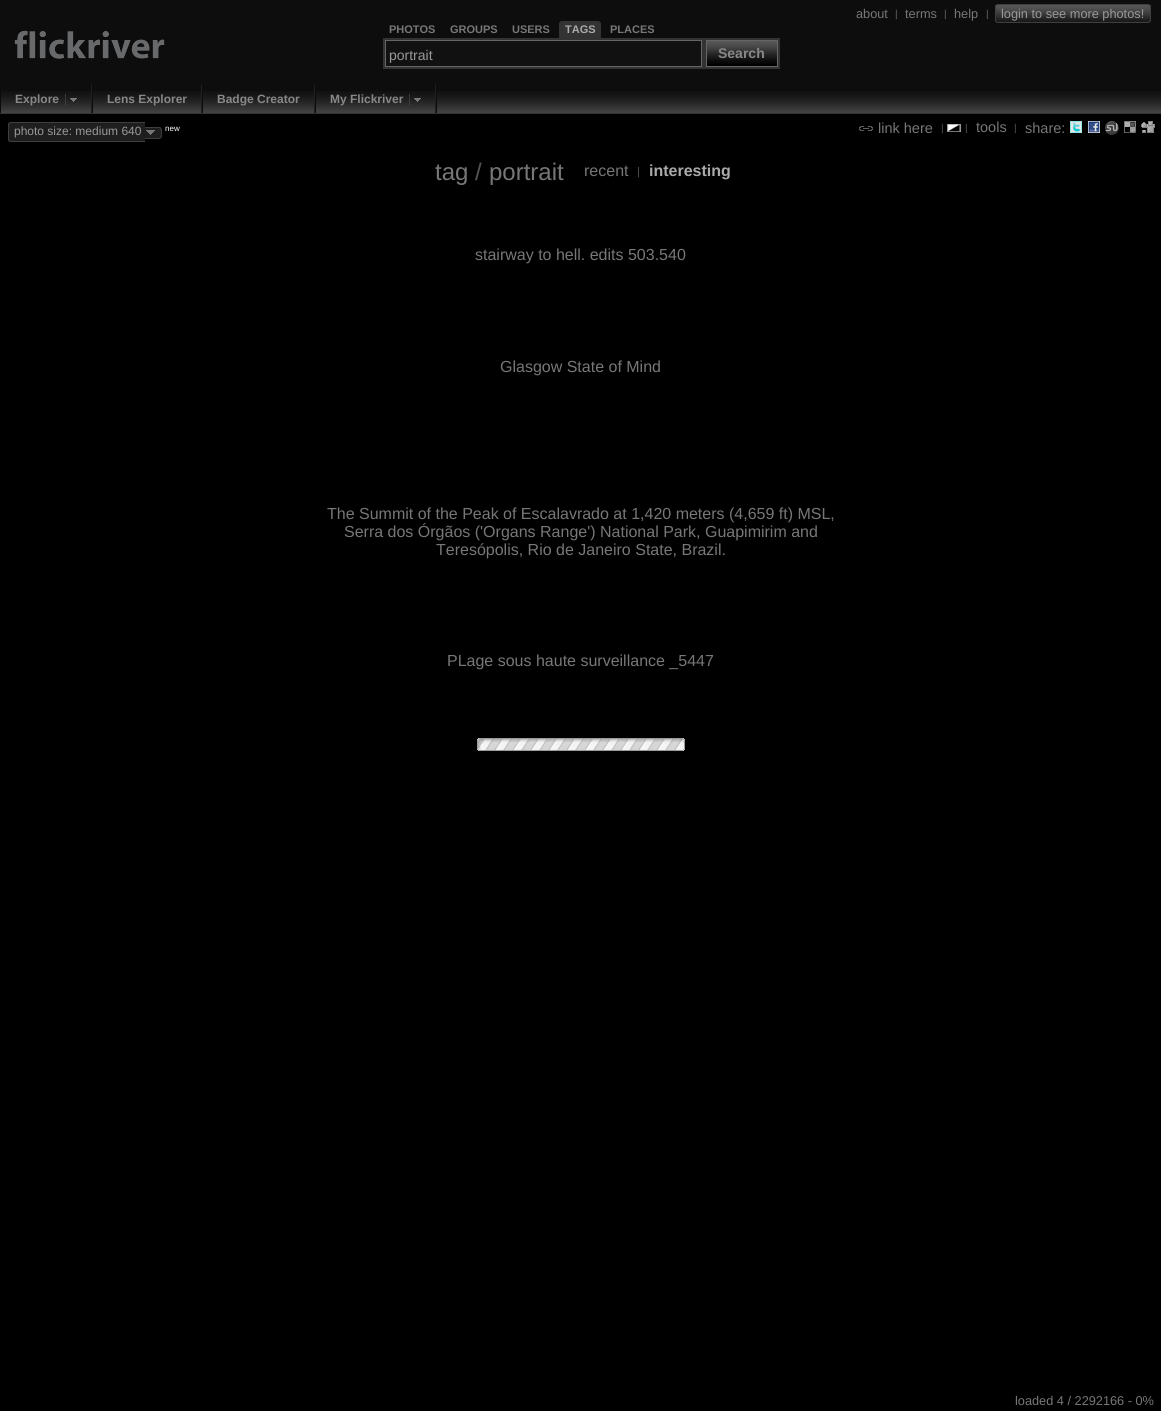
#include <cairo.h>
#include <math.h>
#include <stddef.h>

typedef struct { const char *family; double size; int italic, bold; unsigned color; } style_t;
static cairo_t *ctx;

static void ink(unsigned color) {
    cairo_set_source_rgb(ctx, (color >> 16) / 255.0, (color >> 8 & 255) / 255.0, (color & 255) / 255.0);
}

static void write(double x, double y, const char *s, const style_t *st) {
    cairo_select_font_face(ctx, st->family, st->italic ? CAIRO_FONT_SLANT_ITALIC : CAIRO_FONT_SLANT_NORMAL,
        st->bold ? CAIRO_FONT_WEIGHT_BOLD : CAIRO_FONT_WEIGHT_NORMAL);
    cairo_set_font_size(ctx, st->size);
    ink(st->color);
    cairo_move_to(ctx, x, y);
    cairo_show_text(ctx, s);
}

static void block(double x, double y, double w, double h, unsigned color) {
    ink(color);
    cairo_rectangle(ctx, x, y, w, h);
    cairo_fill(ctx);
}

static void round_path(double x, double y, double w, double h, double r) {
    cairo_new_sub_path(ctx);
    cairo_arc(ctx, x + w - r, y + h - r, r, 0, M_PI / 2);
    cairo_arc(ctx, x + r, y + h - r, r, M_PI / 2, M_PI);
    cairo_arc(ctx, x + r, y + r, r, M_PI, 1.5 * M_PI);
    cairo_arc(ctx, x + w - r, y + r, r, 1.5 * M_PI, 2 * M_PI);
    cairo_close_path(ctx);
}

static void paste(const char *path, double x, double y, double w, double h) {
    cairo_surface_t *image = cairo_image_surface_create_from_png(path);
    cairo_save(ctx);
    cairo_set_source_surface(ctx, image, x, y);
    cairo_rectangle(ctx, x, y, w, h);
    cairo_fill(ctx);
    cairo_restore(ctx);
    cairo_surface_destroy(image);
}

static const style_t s1 = {"Liberation Sans", 12.75, 0, 0, 0x777777};
static const style_t s2 = {"Liberation Sans", 10, 0, 0, 0x666666};
static const style_t s3 = {"Liberation Sans", 12.75, 0, 0, 0x999999};
static const style_t s4 = {"Liberation Sans", 11, 0, 1, 0x777777};
static const style_t s5 = {"Liberation Sans", 11, 0, 1, 0xaaaaaa};
static const style_t s6 = {"Liberation Sans", 14, 0, 0, 0x999999};
static const style_t s7 = {"Liberation Sans", 14, 0, 1, 0x888888};
static const style_t s8 = {"Liberation Sans", 12, 0, 1, 0x888888};
static const style_t s9 = {"Liberation Sans", 12, 0, 0, 0x999999};
static const style_t s10 = {"Liberation Sans", 8, 0, 0, 0xffffff};
static const style_t s11 = {"Liberation Sans", 14.5, 0, 0, 0x777777};
static const style_t s12 = {"Liberation Sans", 10, 0, 0, 0x555555};
static const style_t s13 = {"Liberation Sans", 24, 0, 0, 0x777777};
static const style_t s14 = {"Liberation Sans", 24, 0, 0, 0x555555};
static const style_t s15 = {"Liberation Sans", 16, 0, 0, 0x777777};
static const style_t s16 = {"Liberation Sans", 11, 0, 0, 0x555555};
static const style_t s17 = {"Liberation Sans", 16, 0, 1, 0xaaaaaa};

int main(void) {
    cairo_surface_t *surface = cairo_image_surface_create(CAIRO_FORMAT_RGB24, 1161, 1411);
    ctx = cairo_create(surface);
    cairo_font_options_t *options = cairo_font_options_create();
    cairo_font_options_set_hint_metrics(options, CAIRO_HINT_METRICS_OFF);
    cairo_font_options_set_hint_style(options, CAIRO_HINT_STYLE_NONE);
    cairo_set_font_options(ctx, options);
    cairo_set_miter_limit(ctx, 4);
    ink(0x000000);
    cairo_paint(ctx);
    block(0, 0, 1161, 85, 0x0d0d0d);
    write(856, 18, "about", &s1);
    write(954, 18, "help", &s1);
    paste("pic1.png", 995, 5, 156, 18);
    write(895, 17, "|", &s2);
    write(905, 18, "terms", &s1);
    write(944, 17, "|", &s2);
    write(986, 17, "|", &s2);
    round_path(995.5, 4.5, 155, 18, 2.5);
    ink(0x3f3f3f);
    cairo_set_line_width(ctx, 1);
    cairo_stroke(ctx);
    write(1001, 18, "login to see more photos!", &s3);
    paste("pic2.png", 14, 30, 151, 29);
    write(389, 33, "PHOTOS", &s4);
    write(450, 33, "GROUPS", &s4);
    write(512, 33, "USERS", &s4);
    ink(0x333333);
    cairo_new_path(ctx);
    cairo_move_to(ctx, 562, 21);
    cairo_line_to(ctx, 598, 21);
    cairo_curve_to(ctx, 599.5, 21, 601, 22.5, 601, 24);
    cairo_line_to(ctx, 601, 38);
    cairo_line_to(ctx, 559, 38);
    cairo_line_to(ctx, 559, 24);
    cairo_curve_to(ctx, 559, 22.5, 560.5, 21, 562, 21);
    cairo_close_path(ctx);
    cairo_fill(ctx);
    write(565, 33, "TAGS", &s5);
    write(610, 33, "PLACES", &s4);
    block(383, 38, 397, 31, 0x333333);
    ink(0x111111);
    cairo_rectangle(ctx, 385.5, 40.5, 316, 26);
    cairo_fill_preserve(ctx);
    ink(0x666666);
    cairo_stroke(ctx);
    write(389, 60, "portrait", &s6);
    block(707, 64, 70, 2, 0x000000);
    cairo_rectangle(ctx, 706.5, 40.5, 71, 26);
    ink(0x666666);
    cairo_stroke(ctx);
    paste("pic3.png", 707, 41, 70, 23);
    write(718, 58, "Search", &s7);
    block(1, 85, 1160, 6, 0x0d0d0d);
    paste("pic4.png", 1, 91, 1160, 22);
    block(0, 113, 1161, 1, 0x333333);
    block(436, 85, 1, 28, 0x0b0b0b);
    block(91, 85, 1, 28, 0x212121);
    block(0, 85, 1, 28, 0x0b0b0b);
    write(15, 103, "Explore", &s8);
    paste("pic5.png", 65, 94, 12, 12);
    block(201, 85, 1, 28, 0x212121);
    block(92, 85, 1, 28, 0x0b0b0b);
    write(107, 103, "Lens Explorer", &s8);
    block(314, 85, 1, 28, 0x212121);
    block(202, 85, 1, 28, 0x0b0b0b);
    write(217, 103, "Badge Creator", &s8);
    block(435, 85, 1, 28, 0x212121);
    block(315, 85, 1, 28, 0x0b0b0b);
    write(330, 103, "My Flickriver", &s8);
    paste("pic5.png", 409, 94, 12, 12);
    ink(0x1e1e1e);
    cairo_new_path(ctx);
    cairo_move_to(ctx, 11, 122);
    cairo_line_to(ctx, 141, 122);
    cairo_line_to(ctx, 141, 142);
    cairo_line_to(ctx, 11, 142);
    cairo_curve_to(ctx, 9.5, 142, 8, 140.5, 8, 139);
    cairo_line_to(ctx, 8, 125);
    cairo_curve_to(ctx, 8, 123.5, 9.5, 122, 11, 122);
    cairo_close_path(ctx);
    cairo_fill(ctx);
    ink(0x3f3f3f);
    cairo_set_fill_rule(ctx, CAIRO_FILL_RULE_EVEN_ODD);
    cairo_new_path(ctx);
    cairo_move_to(ctx, 11, 122);
    cairo_line_to(ctx, 141, 122);
    cairo_line_to(ctx, 141, 142);
    cairo_line_to(ctx, 11, 142);
    cairo_curve_to(ctx, 9, 142, 8, 141, 8, 139);
    cairo_line_to(ctx, 8, 125);
    cairo_curve_to(ctx, 8, 123, 9, 122, 11, 122);
    cairo_close_path(ctx);
    cairo_move_to(ctx, 11, 123);
    cairo_line_to(ctx, 141, 123);
    cairo_line_to(ctx, 141, 141);
    cairo_line_to(ctx, 10, 141);
    cairo_line_to(ctx, 9, 140);
    cairo_line_to(ctx, 9, 132);
    cairo_curve_to(ctx, 9, 130, 8, 123, 11, 123);
    cairo_close_path(ctx);
    cairo_fill(ctx);
    write(14, 135, "photo size: medium 640", &s9);
    block(141, 122, 4, 20, 0x1e1e1e);
    block(141, 122, 4, 1, 0x3f3f3f);
    block(141, 141, 4, 1, 0x3f3f3f);
    ink(0x1e1e1e);
    cairo_new_path(ctx);
    cairo_move_to(ctx, 145, 127);
    cairo_line_to(ctx, 159, 127);
    cairo_curve_to(ctx, 160.5, 127, 162, 128.5, 162, 130);
    cairo_line_to(ctx, 162, 136);
    cairo_curve_to(ctx, 162, 137.5, 160.5, 139, 159, 139);
    cairo_line_to(ctx, 145, 139);
    cairo_close_path(ctx);
    cairo_fill(ctx);
    ink(0x3f3f3f);
    cairo_new_path(ctx);
    cairo_move_to(ctx, 145, 127);
    cairo_line_to(ctx, 154.5, 127);
    cairo_curve_to(ctx, 161, 127, 162, 126.5, 162, 133);
    cairo_curve_to(ctx, 162, 139.5, 161, 139, 154.5, 139);
    cairo_line_to(ctx, 145, 139);
    cairo_close_path(ctx);
    cairo_move_to(ctx, 145, 128);
    cairo_line_to(ctx, 154.5, 128);
    cairo_curve_to(ctx, 160.5, 128, 161, 127, 161, 133);
    cairo_curve_to(ctx, 161, 139, 160.5, 138, 154.5, 138);
    cairo_line_to(ctx, 145, 138);
    cairo_close_path(ctx);
    cairo_fill(ctx);
    write(165, 131, "new", &s10);
    paste("pic6.png", 146, 130, 9, 5);
    paste("pic7.png", 859, 126, 14, 5);
    write(878, 133, "link here", &s11);
    write(941, 131, "|", &s12);
    paste("pic8.png", 947, 124, 14, 8);
    write(965, 131, "|", &s12);
    write(976, 132, "tools", &s11);
    write(1014, 131, "|", &s12);
    write(1025, 133, "share:", &s11);
    paste("pic9.png", 1070, 121, 12, 12);
    paste("pic10.png", 1088, 121, 12, 12);
    paste("pic11.png", 1105, 121, 14, 14);
    paste("pic12.png", 1124, 121, 12, 12);
    paste("pic13.png", 1141, 121, 14, 12);
    write(435, 180, "tag", &s13);
    write(475, 180, "/", &s14);
    write(489, 180, "portrait", &s13);
    write(584, 176, "recent", &s15);
    write(637, 175, "|", &s16);
    write(649, 176, "interesting", &s17);
    write(475, 260, "stairway to hell. edits 503.540", &s15);
    write(500, 372, "Glasgow State of Mind", &s15);
    write(327, 519, "The Summit of the Peak of Escalavrado at 1,420 meters (4,659 ft) MSL,", &s15);
    write(344, 537, "Serra dos Órgãos ('Organs Range') National Park, Guapimirim and", &s15);
    write(436, 555, "Teresópolis, Rio de Janeiro State, Brazil.", &s15);
    write(447, 666, "PLage sous haute surveillance _5447", &s15);
    paste("pic14.png", 477, 738, 208, 13);
    write(1015, 1405, "loaded 4 / 2292166 - 0%", &s1);
    cairo_surface_write_to_png(surface, "screenshot.png");
    cairo_font_options_destroy(options);
    cairo_destroy(ctx);
    cairo_surface_destroy(surface);
    return 0;
}
